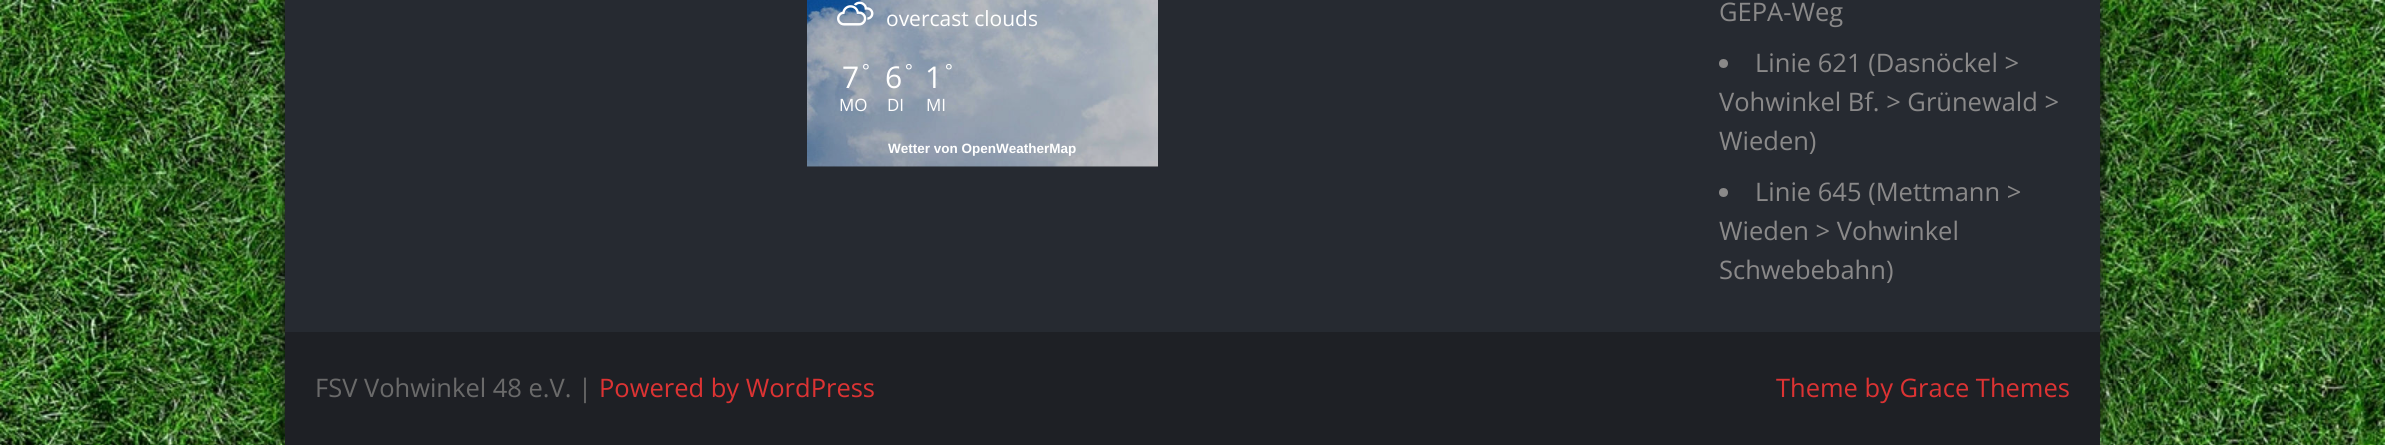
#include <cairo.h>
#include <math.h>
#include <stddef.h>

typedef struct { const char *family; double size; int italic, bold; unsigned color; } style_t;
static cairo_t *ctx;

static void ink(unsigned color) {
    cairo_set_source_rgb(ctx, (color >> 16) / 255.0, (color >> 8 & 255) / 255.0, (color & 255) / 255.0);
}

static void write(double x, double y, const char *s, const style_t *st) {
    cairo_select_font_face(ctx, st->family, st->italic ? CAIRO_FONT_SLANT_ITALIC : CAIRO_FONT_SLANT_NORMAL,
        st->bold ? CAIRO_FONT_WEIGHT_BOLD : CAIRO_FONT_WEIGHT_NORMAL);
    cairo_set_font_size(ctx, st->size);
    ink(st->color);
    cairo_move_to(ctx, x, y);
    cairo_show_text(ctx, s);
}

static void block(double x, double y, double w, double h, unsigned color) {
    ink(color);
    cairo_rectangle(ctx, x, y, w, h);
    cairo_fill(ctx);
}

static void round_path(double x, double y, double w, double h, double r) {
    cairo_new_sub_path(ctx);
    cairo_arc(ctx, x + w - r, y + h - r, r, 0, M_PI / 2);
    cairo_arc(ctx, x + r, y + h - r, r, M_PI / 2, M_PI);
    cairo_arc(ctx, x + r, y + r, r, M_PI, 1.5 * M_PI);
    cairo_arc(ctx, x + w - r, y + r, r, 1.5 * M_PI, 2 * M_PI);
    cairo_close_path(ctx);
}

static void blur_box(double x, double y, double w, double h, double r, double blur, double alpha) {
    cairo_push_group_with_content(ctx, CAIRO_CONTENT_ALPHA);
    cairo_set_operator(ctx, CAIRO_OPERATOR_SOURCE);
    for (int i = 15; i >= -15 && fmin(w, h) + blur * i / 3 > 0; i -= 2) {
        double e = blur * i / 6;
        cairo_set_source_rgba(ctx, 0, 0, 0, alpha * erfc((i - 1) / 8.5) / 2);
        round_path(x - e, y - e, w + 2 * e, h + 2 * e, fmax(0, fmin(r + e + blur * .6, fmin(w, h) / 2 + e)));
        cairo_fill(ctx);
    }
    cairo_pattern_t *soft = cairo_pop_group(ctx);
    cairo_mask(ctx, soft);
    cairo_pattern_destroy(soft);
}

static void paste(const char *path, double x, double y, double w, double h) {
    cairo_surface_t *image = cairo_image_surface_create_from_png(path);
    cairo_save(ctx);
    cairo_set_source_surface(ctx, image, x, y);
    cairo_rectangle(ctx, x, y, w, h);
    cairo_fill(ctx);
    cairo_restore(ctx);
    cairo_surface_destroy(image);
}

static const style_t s1 = {"Open Sans", 21, 0, 0, 0xffffff};
static const style_t s2 = {"Open Sans", 30, 0, 0, 0xffffff};
static const style_t s3 = {"Open Sans", 18, 0, 0, 0xffffff};
static const style_t s4 = {"Open Sans", 17, 0, 0, 0xffffff};
static const style_t s5 = {"Liberation Sans", 13.5, 0, 1, 0xffffff};
static const style_t s6 = {"Open Sans", 25.5, 0, 0, 0x8a8989};
static const style_t s7 = {"Open Sans", 25.5, 0, 0, 0x6a6a6a};
static const style_t s8 = {"Open Sans", 25.5, 0, 0, 0xdd3333};

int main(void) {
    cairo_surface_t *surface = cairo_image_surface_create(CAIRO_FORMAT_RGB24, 2385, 445);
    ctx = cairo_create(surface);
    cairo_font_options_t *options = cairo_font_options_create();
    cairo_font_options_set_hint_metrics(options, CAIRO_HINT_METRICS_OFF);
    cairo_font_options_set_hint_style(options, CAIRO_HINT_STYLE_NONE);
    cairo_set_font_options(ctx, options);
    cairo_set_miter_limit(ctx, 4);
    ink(0xffffff);
    cairo_paint(ctx);
    paste("pic1.png", 0, 0, 2385, 445);
    ink(0x111111);
    blur_box(285, -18, 1815, 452, 0, 6, 1);
    block(285, 0, 1815, 332, 0x262a31);
    paste("pic2.png", 807, 0, 351, 167);
    cairo_set_source_rgba(ctx, 0, 0, 0, 0.2);
    cairo_rectangle(ctx, 807, 0, 351, 167);
    cairo_fill(ctx);
    paste("pic3.png", 837, 1, 37, 25);
    write(886, 26, "overcast clouds", &s1);
    write(842, 88, "7", &s2);
    write(862, 77, "°", &s3);
    write(839, 111, "MO", &s4);
    write(885, 88, "6", &s2);
    write(905, 77, "°", &s3);
    write(887, 111, "DI", &s4);
    write(925, 88, "1", &s2);
    write(945, 77, "°", &s3);
    write(926, 111, "MI", &s4);
    write(888, 153, "Wetter von OpenWeatherMap", &s5);
    write(1719, 21, "GEPA-Weg", &s6);
    cairo_new_path(ctx);
    cairo_arc(ctx, 1723.5, 63.5, 4.5, 0, 2 * M_PI);
    cairo_fill(ctx);
    write(1755, 72, "Linie 621 (Dasnöckel >", &s6);
    write(1719, 111, "Vohwinkel Bf. > Grünewald >", &s6);
    write(1719, 150, "Wieden)", &s6);
    cairo_new_path(ctx);
    cairo_arc(ctx, 1723.5, 192.5, 4.5, 0, 2 * M_PI);
    cairo_fill(ctx);
    write(1755, 201, "Linie 645 (Mettmann >", &s6);
    write(1719, 240, "Wieden > Vohwinkel", &s6);
    write(1719, 279, "Schwebebahn)", &s6);
    block(285, 332, 1815, 113, 0x1e2025);
    write(315, 397, "FSV Vohwinkel 48 e.V. |", &s7);
    write(599, 397, "Powered by WordPress", &s8);
    write(1776, 397, "Theme by Grace Themes", &s8);
    cairo_surface_write_to_png(surface, "screenshot.png");
    cairo_font_options_destroy(options);
    cairo_destroy(ctx);
    cairo_surface_destroy(surface);
    return 0;
}
